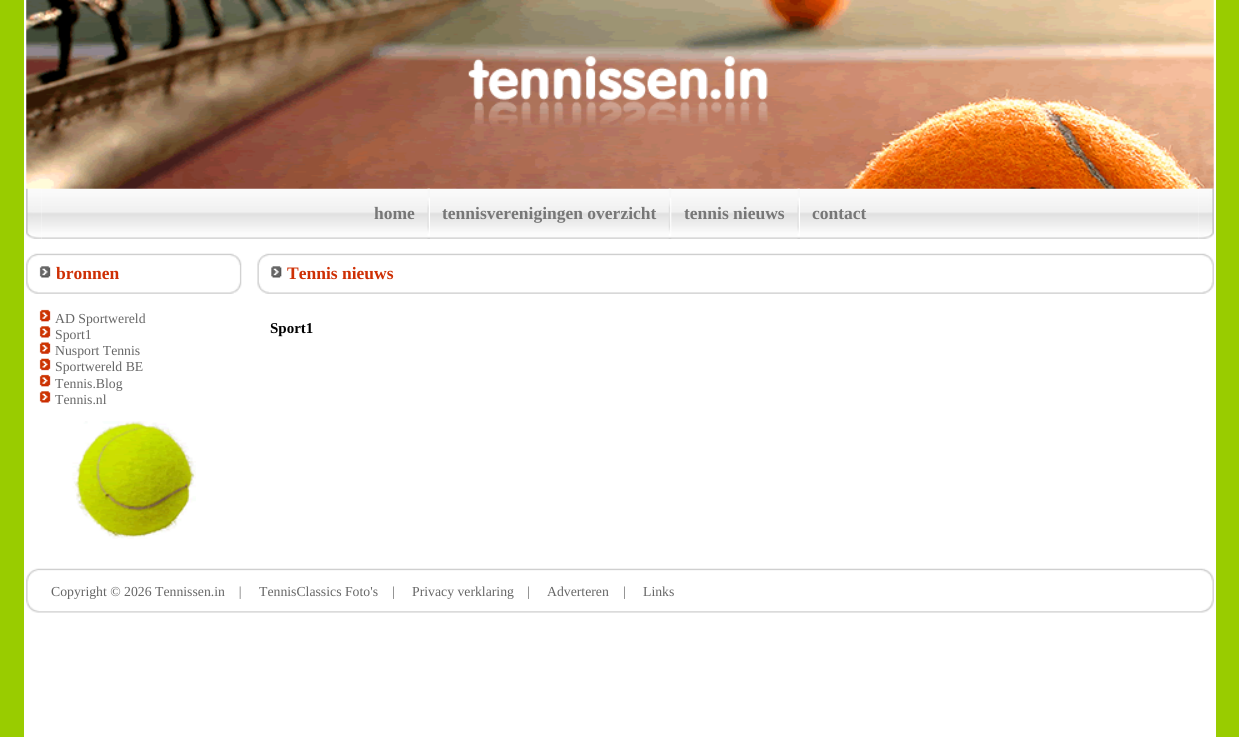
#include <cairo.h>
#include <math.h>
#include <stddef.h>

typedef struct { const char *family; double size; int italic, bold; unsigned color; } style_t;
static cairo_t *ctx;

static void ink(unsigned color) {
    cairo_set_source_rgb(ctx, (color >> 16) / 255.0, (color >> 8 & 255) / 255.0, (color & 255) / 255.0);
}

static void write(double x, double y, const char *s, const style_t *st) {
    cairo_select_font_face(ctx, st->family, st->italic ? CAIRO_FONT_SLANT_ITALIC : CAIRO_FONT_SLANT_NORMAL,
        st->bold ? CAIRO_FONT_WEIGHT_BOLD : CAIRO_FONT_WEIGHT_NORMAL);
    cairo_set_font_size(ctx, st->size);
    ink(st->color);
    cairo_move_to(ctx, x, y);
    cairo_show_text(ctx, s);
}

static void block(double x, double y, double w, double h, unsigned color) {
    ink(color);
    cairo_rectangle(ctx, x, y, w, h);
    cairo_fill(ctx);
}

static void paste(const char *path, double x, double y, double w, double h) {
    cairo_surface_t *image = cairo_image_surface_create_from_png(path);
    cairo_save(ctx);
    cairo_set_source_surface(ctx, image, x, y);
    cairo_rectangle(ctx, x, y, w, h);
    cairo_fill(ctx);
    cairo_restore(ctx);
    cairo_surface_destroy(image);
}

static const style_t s1 = {"Liberation Serif", 17.5, 0, 1, 0x777777};
static const style_t s2 = {"Liberation Serif", 17.5, 0, 1, 0xce2f04};
static const style_t s3 = {"Liberation Serif", 13.75, 0, 0, 0x666666};
static const style_t s4 = {"Liberation Serif", 15, 0, 1, 0x000000};

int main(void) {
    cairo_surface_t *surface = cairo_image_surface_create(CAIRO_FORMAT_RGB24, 1239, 737);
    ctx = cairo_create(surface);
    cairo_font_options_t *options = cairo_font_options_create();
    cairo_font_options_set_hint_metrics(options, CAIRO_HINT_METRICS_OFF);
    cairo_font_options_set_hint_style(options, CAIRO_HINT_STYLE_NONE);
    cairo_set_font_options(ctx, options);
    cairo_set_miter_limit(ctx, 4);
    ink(0x99cc00);
    cairo_paint(ctx);
    block(24, 0, 1192, 737, 0xffffff);
    paste("pic1.png", 26, 0, 1188, 189);
    paste("pic2.png", 26, 188, 15, 51);
    paste("pic3.png", 41, 189, 1158, 50);
    write(374, 219, "home", &s1);
    paste("pic4.png", 427, 188, 3, 51);
    write(442, 219, "tennisverenigingen overzicht", &s1);
    paste("pic5.png", 668, 188, 4, 51);
    write(684, 219, "tennis nieuws", &s1);
    paste("pic6.png", 797, 188, 3, 51);
    write(812, 219, "contact", &s1);
    paste("pic7.png", 1198, 188, 16, 51);
    paste("pic8.png", 26, 253, 216, 41);
    paste("pic9.png", 39, 266, 12, 12);
    write(56, 279, "bronnen", &s2);
    paste("pic10.png", 39, 309, 12, 13);
    write(55, 323, "AD Sportwereld", &s3);
    paste("pic11.png", 39, 326, 12, 12);
    write(55, 339, "Sport1", &s3);
    paste("pic12.png", 39, 342, 12, 12);
    write(55, 355, "Nusport Tennis", &s3);
    paste("pic13.png", 39, 358, 12, 13);
    write(55, 371, "Sportwereld BE", &s3);
    paste("pic10.png", 39, 374, 12, 13);
    write(55, 388, "Tennis.Blog", &s3);
    paste("pic11.png", 39, 391, 12, 12);
    write(55, 404, "Tennis.nl", &s3);
    paste("pic14.png", 72, 421, 124, 118);
    paste("pic15.png", 257, 253, 957, 41);
    paste("pic16.png", 271, 266, 11, 12);
    write(287, 279, "Tennis nieuws", &s2);
    write(270, 333, "Sport1", &s4);
    paste("pic17.png", 26, 568, 1188, 45);
    write(51, 596, "Copyright © 2026 Tennissen.in    |", &s3);
    write(259, 596, "TennisClassics Foto's", &s3);
    write(392, 596, "|", &s3);
    write(412, 596, "Privacy verklaring", &s3);
    write(527, 596, "|", &s3);
    write(547, 596, "Adverteren", &s3);
    write(623, 596, "|", &s3);
    write(643, 596, "Links", &s3);
    cairo_surface_write_to_png(surface, "screenshot.png");
    cairo_font_options_destroy(options);
    cairo_destroy(ctx);
    cairo_surface_destroy(surface);
    return 0;
}
